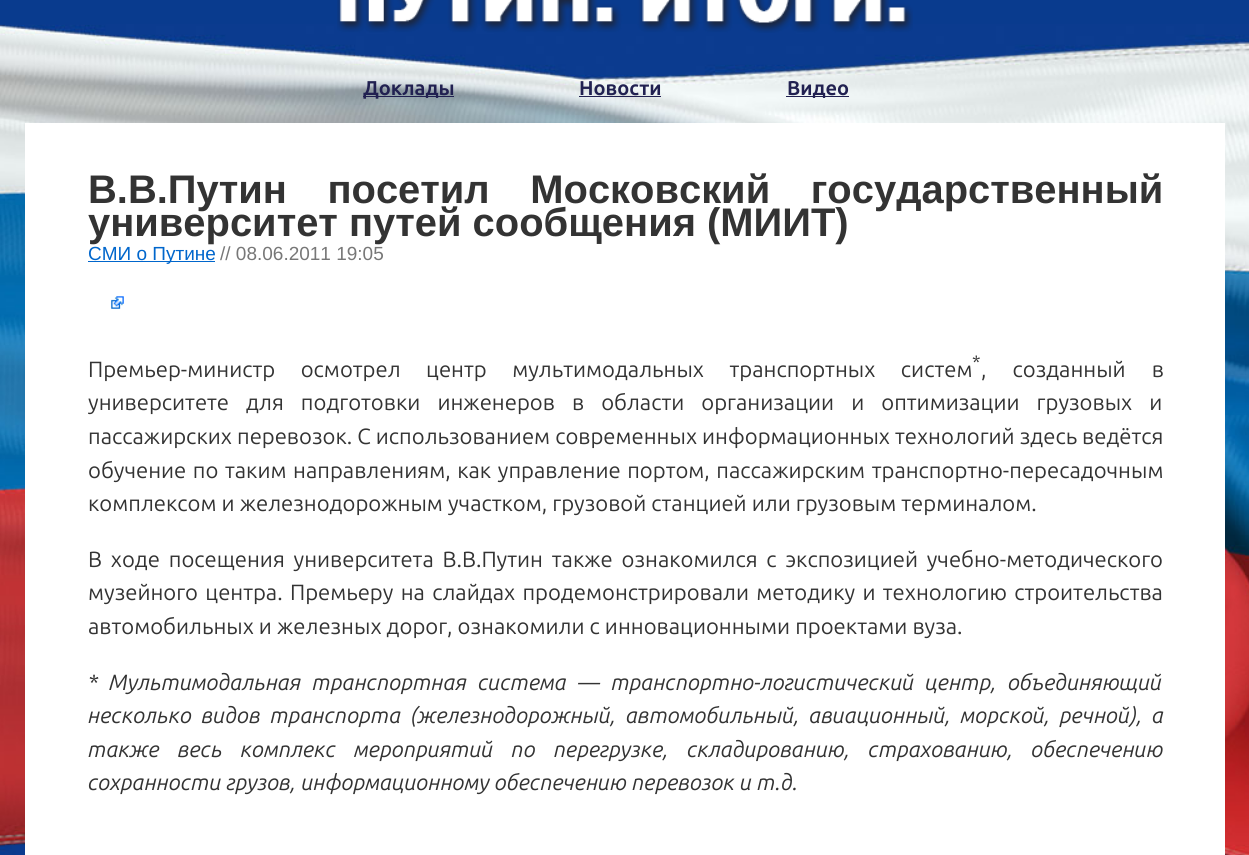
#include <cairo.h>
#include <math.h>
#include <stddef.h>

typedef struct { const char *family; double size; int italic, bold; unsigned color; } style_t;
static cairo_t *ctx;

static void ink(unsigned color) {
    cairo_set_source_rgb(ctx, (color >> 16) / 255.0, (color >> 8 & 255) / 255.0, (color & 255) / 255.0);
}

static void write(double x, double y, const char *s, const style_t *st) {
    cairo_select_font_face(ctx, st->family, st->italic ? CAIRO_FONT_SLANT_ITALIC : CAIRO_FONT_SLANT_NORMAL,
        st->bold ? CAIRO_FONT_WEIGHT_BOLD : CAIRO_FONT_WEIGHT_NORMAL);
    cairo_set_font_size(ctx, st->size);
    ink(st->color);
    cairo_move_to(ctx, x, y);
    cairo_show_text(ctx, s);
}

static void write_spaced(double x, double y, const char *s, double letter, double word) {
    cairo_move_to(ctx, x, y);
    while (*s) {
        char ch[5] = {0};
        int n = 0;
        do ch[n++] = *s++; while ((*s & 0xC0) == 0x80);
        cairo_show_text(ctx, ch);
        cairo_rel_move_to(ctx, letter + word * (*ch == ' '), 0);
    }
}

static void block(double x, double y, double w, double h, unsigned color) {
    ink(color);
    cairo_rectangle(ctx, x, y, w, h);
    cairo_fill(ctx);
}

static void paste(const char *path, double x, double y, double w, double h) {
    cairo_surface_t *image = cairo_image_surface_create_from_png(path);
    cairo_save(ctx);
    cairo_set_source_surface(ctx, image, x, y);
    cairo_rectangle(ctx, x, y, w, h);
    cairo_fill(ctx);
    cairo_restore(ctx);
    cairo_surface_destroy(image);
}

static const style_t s1 = {"Ubuntu", 20, 0, 1, 0x212151};
static const style_t s2 = {"Liberation Sans", 39.9, 0, 1, 0x333333};
static const style_t s3 = {"Liberation Sans", 19, 0, 0, 0x0066cc};
static const style_t s4 = {"Liberation Sans", 19, 0, 0, 0x777777};
static const style_t s5 = {"Ubuntu", 18, 0, 0, 0x333333};
static const style_t s6 = {"Ubuntu", 22.05, 0, 0, 0x333333};
static const style_t s7 = {"Ubuntu", 22.05, 1, 0, 0x333333};

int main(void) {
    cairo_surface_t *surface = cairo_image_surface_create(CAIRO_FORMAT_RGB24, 1249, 855);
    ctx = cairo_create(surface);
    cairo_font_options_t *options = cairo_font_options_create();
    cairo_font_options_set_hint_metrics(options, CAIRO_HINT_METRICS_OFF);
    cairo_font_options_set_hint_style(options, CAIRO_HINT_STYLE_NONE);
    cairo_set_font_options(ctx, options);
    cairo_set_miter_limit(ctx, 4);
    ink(0x093b8e);
    cairo_paint(ctx);
    paste("pic1.png", 0, 24, 1249, 831);
    paste("pic2.png", 337, 0, 576, 33);
    block(363, 96, 91, 1, 0x212151);
    write(363, 95, "Доклады", &s1);
    write(579, 95, "Новости", &s1);
    block(579, 96, 82, 1, 0x212151);
    block(786, 96, 63, 1, 0x212151);
    write(787, 95, "Видео", &s1);
    block(25, 123, 1200, 732, 0xffffff);
    cairo_select_font_face(ctx, "Liberation Sans", CAIRO_FONT_SLANT_NORMAL, CAIRO_FONT_WEIGHT_BOLD);
    cairo_set_font_size(ctx, 39.9);
    ink(0x333333);
    write_spaced(88, 203, "В.В.Путин посетил Московский государственный", 0, 29.5);
    write(88, 236, "университет путей сообщения (МИИТ)", &s2);
    block(88, 261, 127, 1, 0x0066cc);
    write(88, 260, "СМИ о Путине", &s3);
    write(220, 260, "// 08.06.2011 19:05", &s4);
    paste("pic3.png", 111, 296, 13, 13);
    write(972, 368, "*", &s5);
    cairo_set_font_size(ctx, 22.05);
    write_spaced(88, 377, "Премьер-министр осмотрел центр мультимодальных транспортных систем", 0, 20.5);
    write_spaced(981, 377, ", созданный в", 0, 21);
    write_spaced(88, 410, "университете для подготовки инженеров в области организации и оптимизации грузовых и", 0, 12);
    write(88, 444, "пассажирских перевозок. С использованием современных информационных технологий здесь ведётся", &s6);
    write_spaced(88, 478, "обучение по таким направлениям, как управление портом, пассажирским транспортно-пересадочным", 0, 1.5);
    write(88, 511, "комплексом и железнодорожным участком, грузовой станцией или грузовым терминалом.", &s6);
    write_spaced(88, 567, "В ходе посещения университета В.В.Путин также ознакомился с экспозицией учебно-методического", 0, 3.75);
    write_spaced(88, 600, "музейного центра. Премьеру на слайдах продемонстрировали методику и технологию строительства", 0, 2.25);
    write(88, 634, "автомобильных и железных дорог, ознакомили с инновационными проектами вуза.", &s6);
    cairo_select_font_face(ctx, "Ubuntu", CAIRO_FONT_SLANT_ITALIC, CAIRO_FONT_WEIGHT_NORMAL);
    write_spaced(88, 690, "* Мультимодальная транспортная система — транспортно-логистический центр, объединяющий", 0, 6);
    write_spaced(88, 723, "несколько видов транспорта (железнодорожный, автомобильный, авиационный, морской, речной), а", 0, 4.5);
    write_spaced(88, 757, "также весь комплекс мероприятий по перегрузке, складированию, страхованию, обеспечению", 0, 13);
    write(88, 790, "сохранности грузов, информационному обеспечению перевозок и т.д.", &s7);
    cairo_surface_write_to_png(surface, "screenshot.png");
    cairo_font_options_destroy(options);
    cairo_destroy(ctx);
    cairo_surface_destroy(surface);
    return 0;
}
